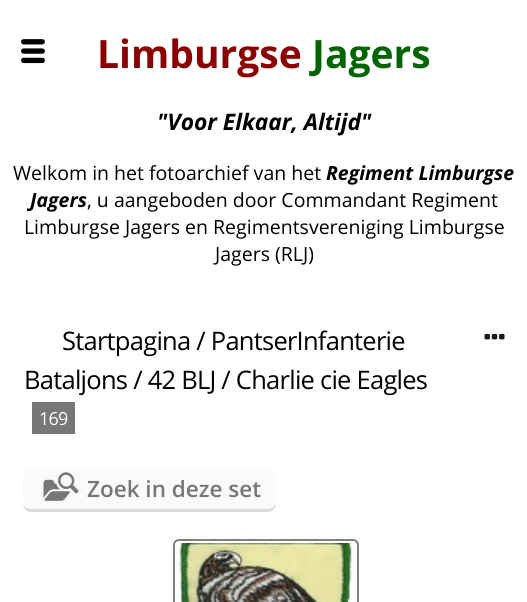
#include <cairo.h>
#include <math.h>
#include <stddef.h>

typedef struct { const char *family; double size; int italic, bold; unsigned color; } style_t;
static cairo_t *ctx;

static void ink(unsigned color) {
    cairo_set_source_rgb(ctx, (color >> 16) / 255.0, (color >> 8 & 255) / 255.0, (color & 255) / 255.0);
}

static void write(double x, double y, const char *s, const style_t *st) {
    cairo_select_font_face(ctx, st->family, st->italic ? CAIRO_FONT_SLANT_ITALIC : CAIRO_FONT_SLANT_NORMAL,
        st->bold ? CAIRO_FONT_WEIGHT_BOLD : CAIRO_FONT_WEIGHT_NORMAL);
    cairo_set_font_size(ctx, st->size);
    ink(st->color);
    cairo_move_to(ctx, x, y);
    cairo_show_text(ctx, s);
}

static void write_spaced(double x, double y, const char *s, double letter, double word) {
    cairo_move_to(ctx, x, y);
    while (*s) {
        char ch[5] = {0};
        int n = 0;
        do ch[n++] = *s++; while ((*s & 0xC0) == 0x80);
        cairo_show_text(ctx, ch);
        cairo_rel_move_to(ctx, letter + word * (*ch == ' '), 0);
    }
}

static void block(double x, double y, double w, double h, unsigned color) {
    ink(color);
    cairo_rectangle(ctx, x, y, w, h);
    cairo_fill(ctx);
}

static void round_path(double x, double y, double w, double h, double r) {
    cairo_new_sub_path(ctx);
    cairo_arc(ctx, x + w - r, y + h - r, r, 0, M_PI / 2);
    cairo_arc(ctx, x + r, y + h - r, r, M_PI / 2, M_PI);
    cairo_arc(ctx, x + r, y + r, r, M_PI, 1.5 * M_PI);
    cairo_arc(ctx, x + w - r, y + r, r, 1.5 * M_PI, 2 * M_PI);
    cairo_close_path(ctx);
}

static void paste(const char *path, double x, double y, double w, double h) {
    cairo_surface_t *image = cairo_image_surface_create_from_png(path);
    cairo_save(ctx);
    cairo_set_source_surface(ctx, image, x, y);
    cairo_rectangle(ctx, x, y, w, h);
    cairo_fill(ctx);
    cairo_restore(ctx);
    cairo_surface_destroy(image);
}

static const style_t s1 = {"Open Sans", 39, 0, 1, 0x8b0000};
static const style_t s2 = {"Open Sans", 39, 0, 1, 0x006400};
static const style_t s3 = {"Open Sans", 22.75, 1, 1, 0x000000};
static const style_t s4 = {"Open Sans", 19.5, 0, 0, 0x000000};
static const style_t s5 = {"Open Sans", 19.5, 1, 1, 0x000000};
static const style_t s6 = {"Open Sans SemiBold", 22.5, 0, 0, 0x777777};

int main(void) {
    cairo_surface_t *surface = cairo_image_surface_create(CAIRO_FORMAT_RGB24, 527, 602);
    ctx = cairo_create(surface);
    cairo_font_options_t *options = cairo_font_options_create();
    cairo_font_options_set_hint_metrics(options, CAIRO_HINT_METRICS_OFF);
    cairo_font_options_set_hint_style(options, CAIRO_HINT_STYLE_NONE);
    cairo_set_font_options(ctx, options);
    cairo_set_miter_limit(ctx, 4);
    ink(0xffffff);
    cairo_paint(ctx);
    write(97, 68, "Limburgse", &s1);
    write(312, 68, "Jagers", &s2);
    write(157, 130, "\"Voor Elkaar, Altijd\"", &s3);
    write(13, 180, "Welkom in het fotoarchief van het", &s4);
    write(326, 180, "Regiment Limburgse", &s5);
    write(30, 207, "Jagers", &s5);
    write(87, 207, ", u aangeboden door Commandant Regiment", &s4);
    write(24, 234, "Limburgse Jagers en Regimentsvereniging Limburgse", &s4);
    write(215, 261, "Jagers (RLJ)", &s4);
    paste("pic1.png", 21, 39, 24, 25);
    cairo_set_font_size(ctx, 25.5);
    write_spaced(62, 350, "Startpagina / PantserInfanterie", -0.75, 0);
    write_spaced(24, 389, "Bataljons / 42 BLJ / Charlie cie Eagles", -0.75, 0);
    block(32, 402, 43, 32, 0x777777);
    cairo_set_font_size(ctx, 18);
    ink(0xffffff);
    write_spaced(39, 425, "169", -0.75, 0);
    paste("pic2.png", 484, 333, 21, 7);
    ink(0xdbdbdb);
    cairo_new_path(ctx);
    cairo_move_to(ctx, 23, 504);
    cairo_curve_to(ctx, 23, 508, 27, 512, 31, 512);
    cairo_line_to(ctx, 268, 512);
    cairo_curve_to(ctx, 272, 512, 276, 508, 276, 504);
    cairo_line_to(ctx, 276, 501);
    cairo_curve_to(ctx, 276, 505, 273, 508, 268, 508);
    cairo_line_to(ctx, 30, 508);
    cairo_curve_to(ctx, 27, 508, 24, 507, 23, 504);
    cairo_close_path(ctx);
    cairo_fill(ctx);
    ink(0xfafafa);
    round_path(23, 467, 253, 42, 8);
    cairo_fill(ctx);
    paste("pic3.png", 43, 472, 36, 29);
    write(87, 497, "Zoek in deze set", &s6);
    round_path(174, 540, 184, 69, 5);
    ink(0x808080);
    cairo_stroke(ctx);
    paste("pic4.png", 175, 543, 181, 59);
    cairo_surface_write_to_png(surface, "screenshot.png");
    cairo_font_options_destroy(options);
    cairo_destroy(ctx);
    cairo_surface_destroy(surface);
    return 0;
}
